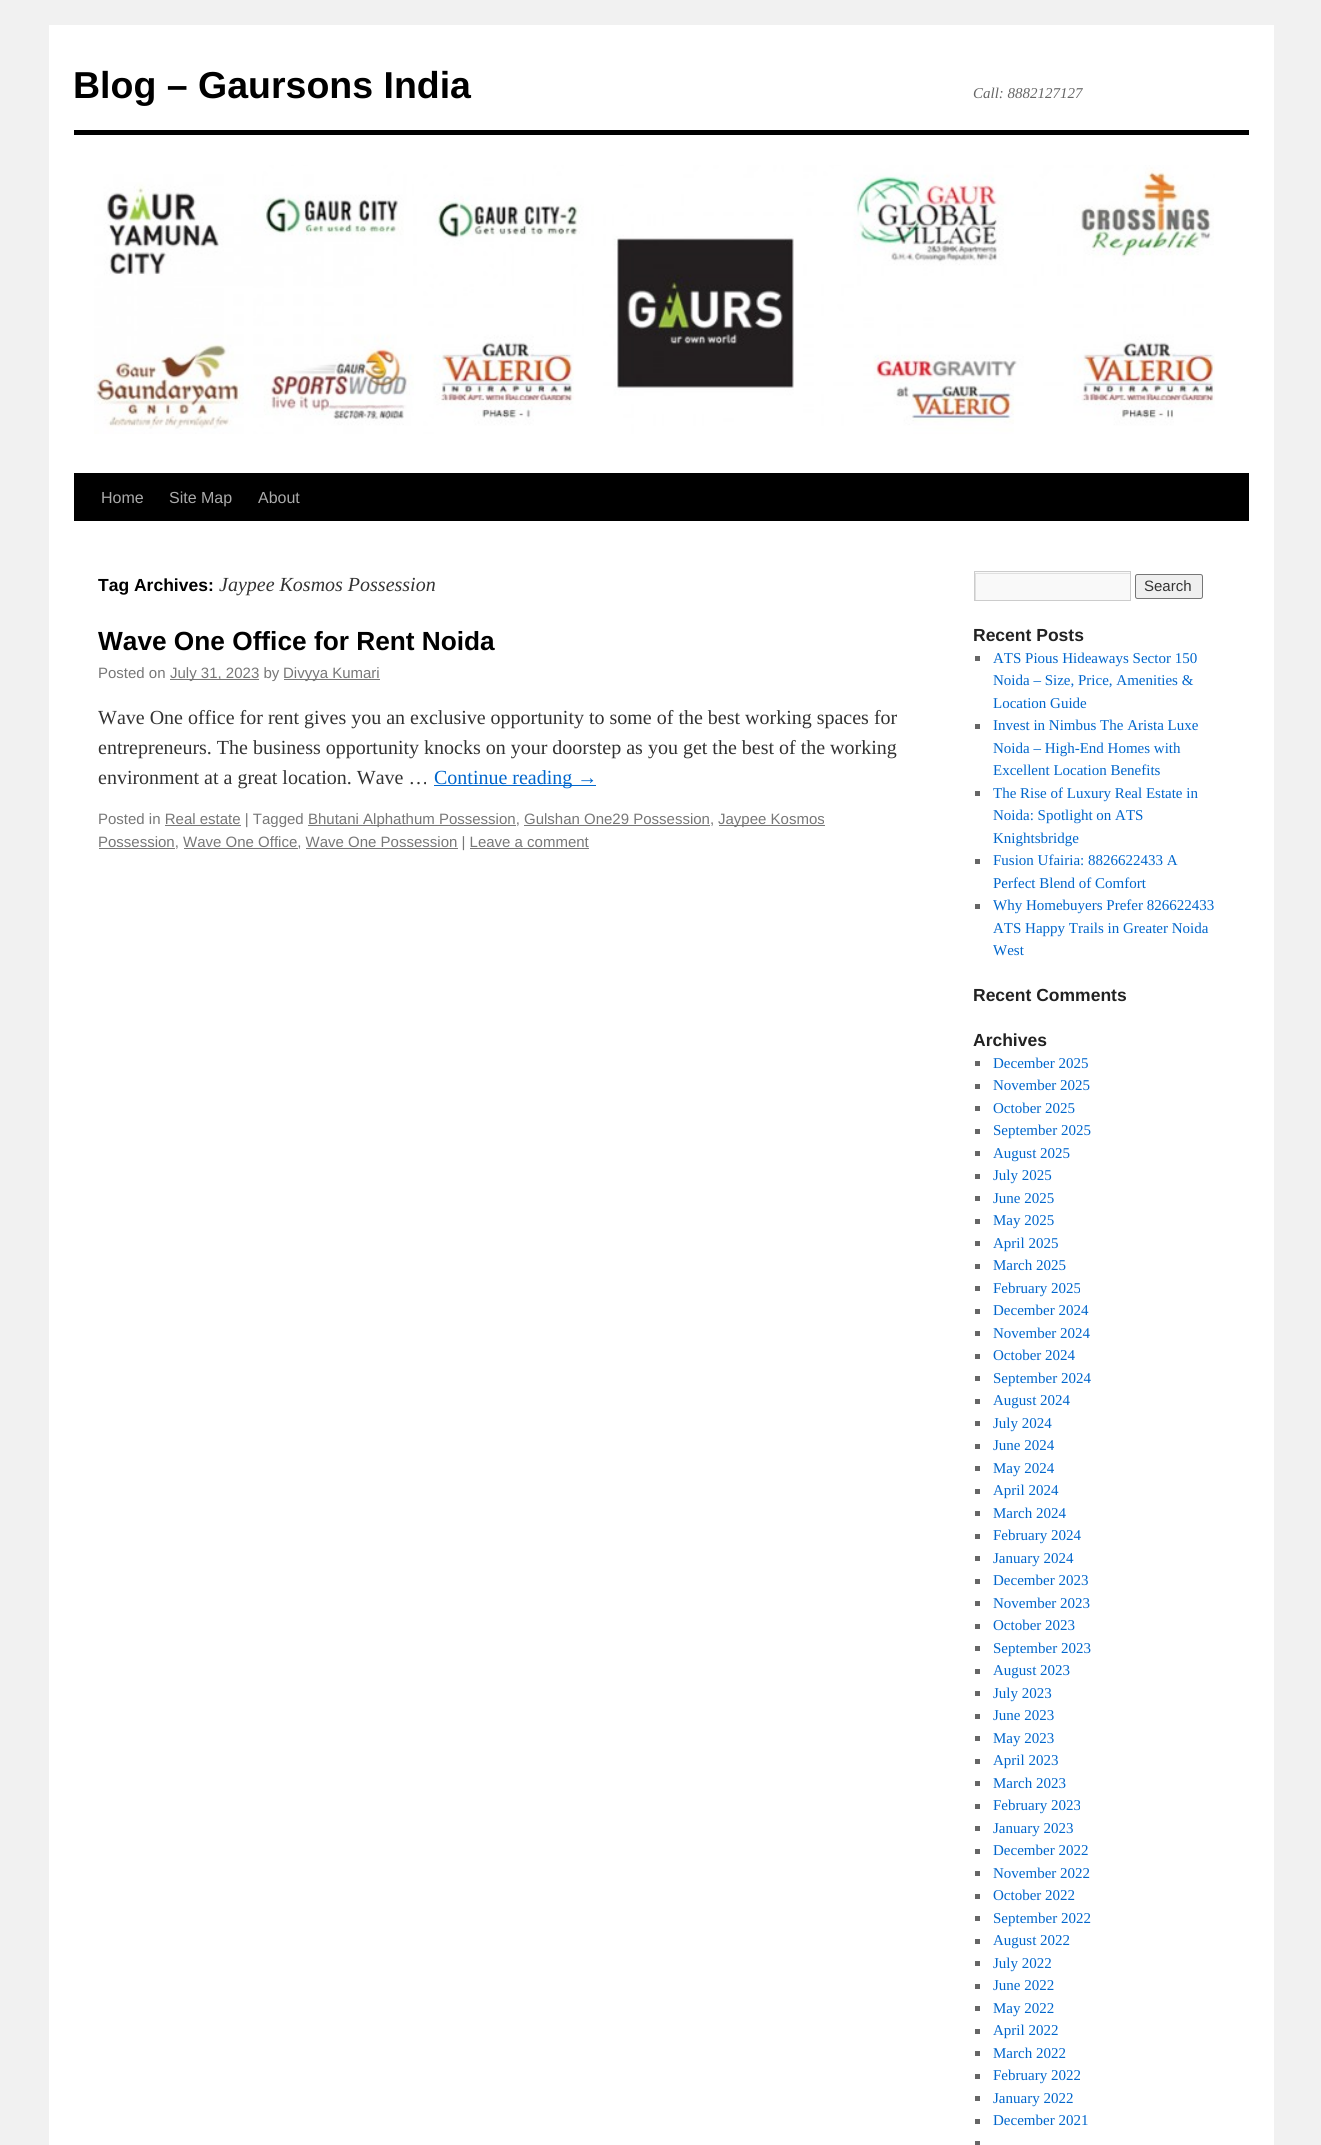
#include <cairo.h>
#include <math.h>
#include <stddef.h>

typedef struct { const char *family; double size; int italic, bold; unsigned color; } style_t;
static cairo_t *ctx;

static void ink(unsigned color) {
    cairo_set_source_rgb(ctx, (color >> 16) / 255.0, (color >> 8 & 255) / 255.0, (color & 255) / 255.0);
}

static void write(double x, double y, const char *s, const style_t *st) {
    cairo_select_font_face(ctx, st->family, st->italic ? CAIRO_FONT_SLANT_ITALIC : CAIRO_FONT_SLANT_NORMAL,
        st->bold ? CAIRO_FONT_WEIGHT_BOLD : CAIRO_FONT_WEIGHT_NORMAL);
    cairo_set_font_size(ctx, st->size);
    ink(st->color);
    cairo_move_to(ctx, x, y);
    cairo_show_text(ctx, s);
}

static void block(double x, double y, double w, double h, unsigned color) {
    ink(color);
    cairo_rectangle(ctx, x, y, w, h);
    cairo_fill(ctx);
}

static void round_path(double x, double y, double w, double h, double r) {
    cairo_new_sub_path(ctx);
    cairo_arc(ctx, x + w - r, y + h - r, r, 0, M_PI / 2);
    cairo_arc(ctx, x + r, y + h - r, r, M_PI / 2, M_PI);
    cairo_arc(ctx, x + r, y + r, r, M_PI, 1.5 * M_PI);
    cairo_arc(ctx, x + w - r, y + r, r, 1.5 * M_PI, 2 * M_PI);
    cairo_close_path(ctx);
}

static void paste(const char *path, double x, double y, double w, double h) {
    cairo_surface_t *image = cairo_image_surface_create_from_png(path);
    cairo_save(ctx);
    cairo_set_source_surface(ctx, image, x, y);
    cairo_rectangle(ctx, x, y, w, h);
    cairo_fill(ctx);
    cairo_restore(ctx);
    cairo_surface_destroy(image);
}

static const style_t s1 = {"Liberation Sans", 37.5, 0, 1, 0x000000};
static const style_t s2 = {"Liberation Serif", 15, 1, 0, 0x666666};
static const style_t s3 = {"Liberation Sans", 16, 0, 0, 0xaaaaaa};
static const style_t s4 = {"Liberation Sans", 17.5, 0, 1, 0x000000};
static const style_t s5 = {"Liberation Serif", 20, 1, 0, 0x333333};
static const style_t s6 = {"Liberation Sans", 26.25, 0, 1, 0x000000};
static const style_t s7 = {"Liberation Sans", 15, 0, 0, 0x777777};
static const style_t s8 = {"Liberation Serif", 20, 0, 0, 0x333333};
static const style_t s9 = {"Liberation Serif", 20, 0, 0, 0x0066cc};
static const style_t s10 = {"Liberation Sans", 15, 0, 0, 0x333333};
static const style_t s11 = {"Liberation Sans", 17.5, 0, 1, 0x222222};
static const style_t s12 = {"Liberation Serif", 15, 0, 0, 0x0066cc};

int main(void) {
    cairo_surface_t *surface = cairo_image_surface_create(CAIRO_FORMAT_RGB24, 1321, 2145);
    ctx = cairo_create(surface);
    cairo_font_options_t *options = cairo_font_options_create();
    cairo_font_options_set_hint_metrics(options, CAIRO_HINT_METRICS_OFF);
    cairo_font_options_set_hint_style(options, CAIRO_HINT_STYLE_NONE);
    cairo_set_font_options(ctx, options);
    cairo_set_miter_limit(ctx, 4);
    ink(0xf1f1f1);
    cairo_paint(ctx);
    block(49, 25, 1225, 2120, 0xffffff);
    write(73, 98, "Blog – Gaursons India", &s1);
    write(973, 98, "Call: 8882127127", &s2);
    block(74, 130, 1175, 5, 0x000000);
    block(74, 473, 1175, 48, 0x000000);
    paste("pic1.png", 94, 165, 1121, 269);
    write(101, 503, "Home", &s3);
    write(169, 503, "Site Map", &s3);
    write(258, 503, "About", &s3);
    write(98, 591, "Tag Archives:", &s4);
    write(219, 591, "Jaypee Kosmos Possession", &s5);
    write(98, 650, "Wave One Office for Rent Noida", &s6);
    write(98, 678, "Posted on", &s7);
    block(170, 679, 89, 1, 0x777777);
    write(170, 678, "July 31, 2023 by", &s7);
    block(284, 679, 96, 1, 0x777777);
    write(283, 678, "Divyya Kumari", &s7);
    write(98, 724, "Wave One office for rent gives you an exclusive opportunity to some of the best working spaces for", &s8);
    write(98, 754, "entrepreneurs. The business opportunity knocks on your doorstep as you get the best of the working", &s8);
    write(98, 784, "environment at a great location. Wave …", &s8);
    block(434, 785, 162, 1, 0x0066cc);
    write(434, 784, "Continue reading →", &s9);
    write(98, 824, "Posted in Real estate | Tagged", &s7);
    block(165, 825, 76, 1, 0x777777);
    block(308, 825, 208, 1, 0x777777);
    write(308, 824, "Bhutani Alphathum Possession, Gulshan One29 Possession,", &s7);
    block(524, 825, 186, 1, 0x777777);
    block(719, 825, 106, 1, 0x777777);
    write(718, 824, "Jaypee Kosmos", &s7);
    block(99, 848, 76, 1, 0x777777);
    write(98, 847, "Possession, Wave One Office, Wave One Possession | Leave a comment", &s7);
    block(184, 848, 114, 1, 0x777777);
    block(306, 848, 152, 1, 0x777777);
    block(470, 848, 119, 1, 0x777777);
    block(975, 572, 155, 28, 0xf9f9f9);
    cairo_save(ctx);
    cairo_rectangle(ctx, 975, 573, 155, 27);
    cairo_clip(ctx);
    ink(0xe0e0e0);
    cairo_set_fill_rule(ctx, CAIRO_FILL_RULE_EVEN_ODD);
    cairo_new_path(ctx);
    cairo_move_to(ctx, 851, 449);
    cairo_line_to(ctx, 1254, 449);
    cairo_line_to(ctx, 1254, 724);
    cairo_line_to(ctx, 851, 724);
    cairo_close_path(ctx);
    cairo_move_to(ctx, 976, 574);
    cairo_line_to(ctx, 1131, 574);
    cairo_line_to(ctx, 1131, 601);
    cairo_line_to(ctx, 976, 601);
    cairo_close_path(ctx);
    cairo_fill(ctx);
    cairo_restore(ctx);
    cairo_rectangle(ctx, 974.5, 571.5, 156, 29);
    ink(0xcccccc);
    cairo_set_line_width(ctx, 1);
    cairo_stroke(ctx);
    ink(0xefefef);
    round_path(1135.5, 574.5, 67, 24, 2);
    cairo_fill_preserve(ctx);
    ink(0x767676);
    cairo_stroke(ctx);
    write(1144, 591, "Search", &s10);
    write(973, 641, "Recent Posts", &s11);
    block(975, 656, 5, 5, 0x666666);
    write(993, 663, "ATS Pious Hideaways Sector 150", &s12);
    write(993, 685, "Noida – Size, Price, Amenities &", &s12);
    write(993, 708, "Location Guide", &s12);
    block(975, 724, 5, 5, 0x666666);
    write(993, 730, "Invest in Nimbus The Arista Luxe", &s12);
    write(993, 753, "Noida – High-End Homes with", &s12);
    write(993, 775, "Excellent Location Benefits", &s12);
    block(975, 791, 5, 5, 0x666666);
    write(993, 798, "The Rise of Luxury Real Estate in", &s12);
    write(993, 820, "Noida: Spotlight on ATS", &s12);
    write(993, 843, "Knightsbridge", &s12);
    block(975, 859, 5, 5, 0x666666);
    write(993, 865, "Fusion Ufairia: 8826622433 A", &s12);
    write(993, 888, "Perfect Blend of Comfort", &s12);
    block(975, 904, 5, 5, 0x666666);
    write(993, 910, "Why Homebuyers Prefer 826622433", &s12);
    write(993, 933, "ATS Happy Trails in Greater Noida", &s12);
    write(993, 955, "West", &s12);
    write(973, 1001, "Recent Comments", &s11);
    write(973, 1046, "Archives", &s11);
    block(975, 1061, 5, 5, 0x666666);
    write(993, 1068, "December 2025", &s12);
    block(975, 1084, 5, 5, 0x666666);
    write(993, 1090, "November 2025", &s12);
    block(975, 1106, 5, 5, 0x666666);
    write(993, 1113, "October 2025", &s12);
    block(975, 1129, 5, 5, 0x666666);
    write(993, 1135, "September 2025", &s12);
    block(975, 1151, 5, 5, 0x666666);
    write(993, 1158, "August 2025", &s12);
    block(975, 1174, 5, 5, 0x666666);
    write(993, 1180, "July 2025", &s12);
    block(975, 1196, 5, 5, 0x666666);
    write(993, 1203, "June 2025", &s12);
    block(975, 1219, 5, 5, 0x666666);
    write(993, 1225, "May 2025", &s12);
    block(975, 1241, 5, 5, 0x666666);
    write(993, 1248, "April 2025", &s12);
    block(975, 1264, 5, 5, 0x666666);
    write(993, 1270, "March 2025", &s12);
    block(975, 1286, 5, 5, 0x666666);
    write(993, 1293, "February 2025", &s12);
    block(975, 1309, 5, 5, 0x666666);
    write(993, 1315, "December 2024", &s12);
    block(975, 1331, 5, 5, 0x666666);
    write(993, 1338, "November 2024", &s12);
    block(975, 1354, 5, 5, 0x666666);
    write(993, 1360, "October 2024", &s12);
    block(975, 1376, 5, 5, 0x666666);
    write(993, 1383, "September 2024", &s12);
    block(975, 1399, 5, 5, 0x666666);
    write(993, 1405, "August 2024", &s12);
    block(975, 1421, 5, 5, 0x666666);
    write(993, 1428, "July 2024", &s12);
    block(975, 1444, 5, 5, 0x666666);
    write(993, 1450, "June 2024", &s12);
    block(975, 1466, 5, 5, 0x666666);
    write(993, 1473, "May 2024", &s12);
    block(975, 1489, 5, 5, 0x666666);
    write(993, 1495, "April 2024", &s12);
    block(975, 1511, 5, 5, 0x666666);
    write(993, 1518, "March 2024", &s12);
    block(975, 1534, 5, 5, 0x666666);
    write(993, 1540, "February 2024", &s12);
    block(975, 1556, 5, 5, 0x666666);
    write(993, 1563, "January 2024", &s12);
    block(975, 1579, 5, 5, 0x666666);
    write(993, 1585, "December 2023", &s12);
    block(975, 1601, 5, 5, 0x666666);
    write(993, 1608, "November 2023", &s12);
    block(975, 1624, 5, 5, 0x666666);
    write(993, 1630, "October 2023", &s12);
    block(975, 1646, 5, 5, 0x666666);
    write(993, 1653, "September 2023", &s12);
    block(975, 1669, 5, 5, 0x666666);
    write(993, 1675, "August 2023", &s12);
    block(975, 1691, 5, 5, 0x666666);
    write(993, 1698, "July 2023", &s12);
    block(975, 1714, 5, 5, 0x666666);
    write(993, 1720, "June 2023", &s12);
    block(975, 1736, 5, 5, 0x666666);
    write(993, 1743, "May 2023", &s12);
    block(975, 1759, 5, 5, 0x666666);
    write(993, 1765, "April 2023", &s12);
    block(975, 1781, 5, 5, 0x666666);
    write(993, 1788, "March 2023", &s12);
    block(975, 1804, 5, 5, 0x666666);
    write(993, 1810, "February 2023", &s12);
    block(975, 1826, 5, 5, 0x666666);
    write(993, 1833, "January 2023", &s12);
    block(975, 1849, 5, 5, 0x666666);
    write(993, 1855, "December 2022", &s12);
    block(975, 1871, 5, 5, 0x666666);
    write(993, 1878, "November 2022", &s12);
    block(975, 1894, 5, 5, 0x666666);
    write(993, 1900, "October 2022", &s12);
    block(975, 1916, 5, 5, 0x666666);
    write(993, 1923, "September 2022", &s12);
    block(975, 1939, 5, 5, 0x666666);
    write(993, 1945, "August 2022", &s12);
    block(975, 1961, 5, 5, 0x666666);
    write(993, 1968, "July 2022", &s12);
    block(975, 1984, 5, 5, 0x666666);
    write(993, 1990, "June 2022", &s12);
    block(975, 2006, 5, 5, 0x666666);
    write(993, 2013, "May 2022", &s12);
    block(975, 2029, 5, 5, 0x666666);
    write(993, 2035, "April 2022", &s12);
    block(975, 2051, 5, 5, 0x666666);
    write(993, 2058, "March 2022", &s12);
    block(975, 2074, 5, 5, 0x666666);
    write(993, 2080, "February 2022", &s12);
    block(975, 2096, 5, 5, 0x666666);
    write(993, 2103, "January 2022", &s12);
    block(975, 2119, 5, 5, 0x666666);
    write(993, 2125, "December 2021", &s12);
    block(975, 2141, 5, 4, 0x666666);
    cairo_surface_write_to_png(surface, "screenshot.png");
    cairo_font_options_destroy(options);
    cairo_destroy(ctx);
    cairo_surface_destroy(surface);
    return 0;
}
